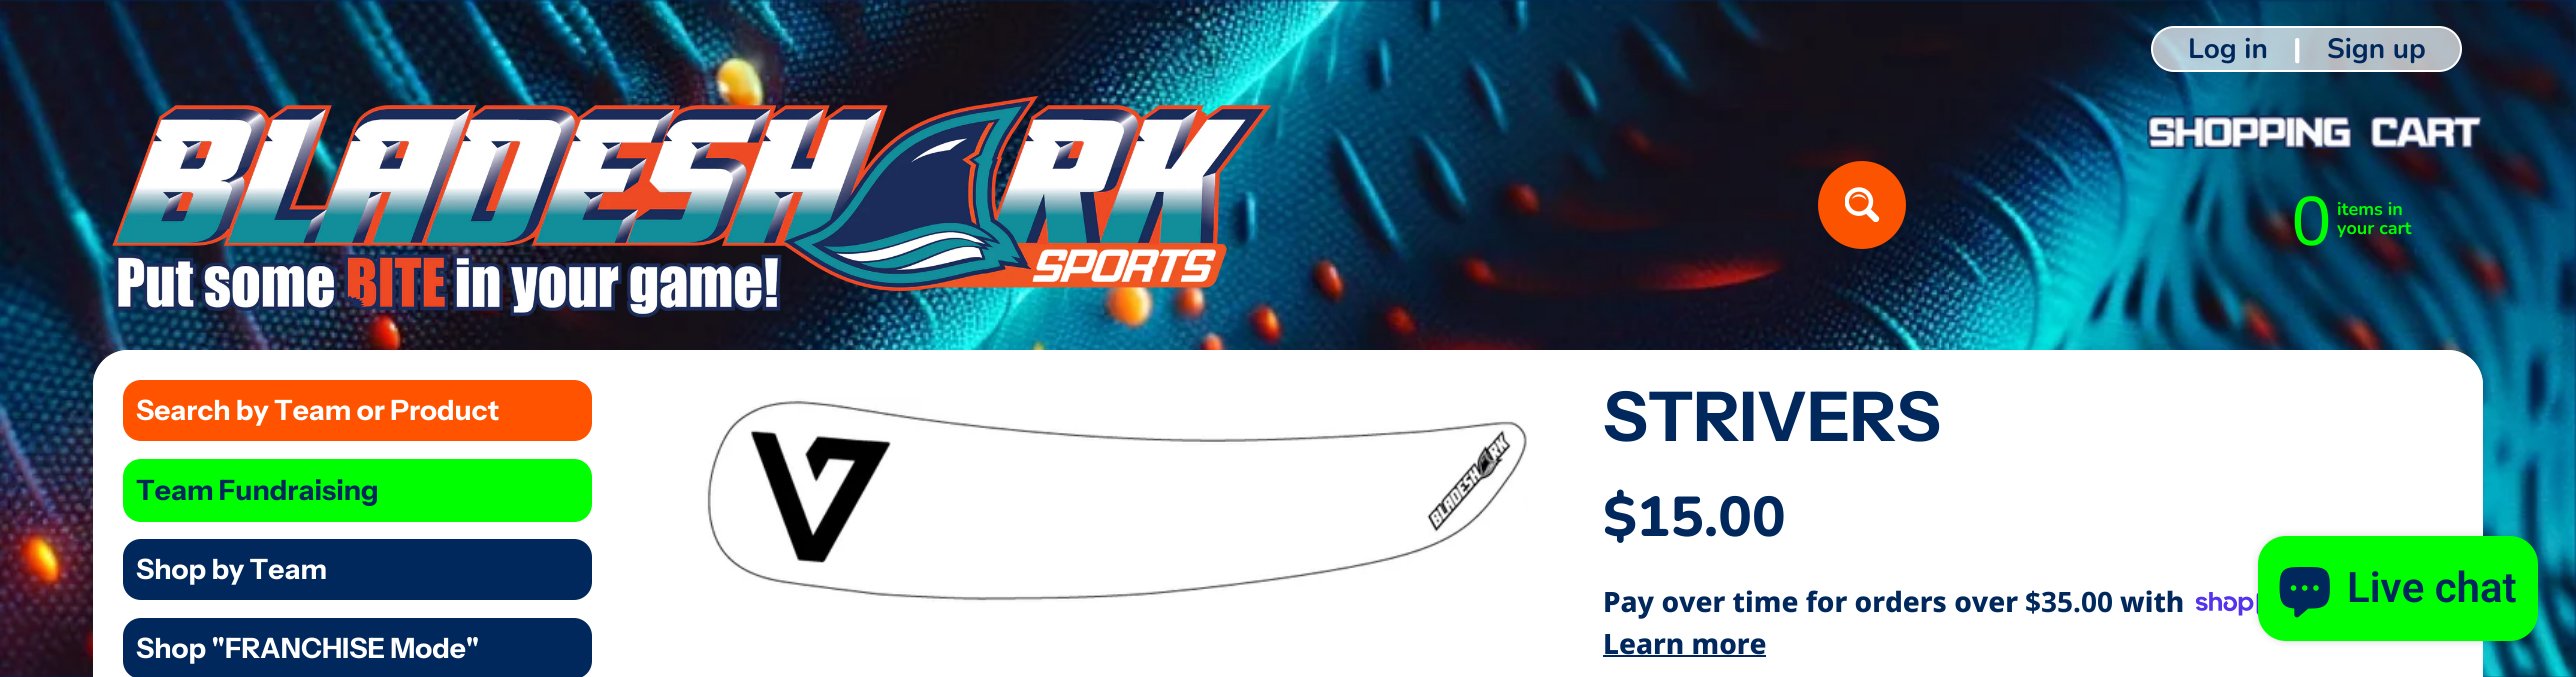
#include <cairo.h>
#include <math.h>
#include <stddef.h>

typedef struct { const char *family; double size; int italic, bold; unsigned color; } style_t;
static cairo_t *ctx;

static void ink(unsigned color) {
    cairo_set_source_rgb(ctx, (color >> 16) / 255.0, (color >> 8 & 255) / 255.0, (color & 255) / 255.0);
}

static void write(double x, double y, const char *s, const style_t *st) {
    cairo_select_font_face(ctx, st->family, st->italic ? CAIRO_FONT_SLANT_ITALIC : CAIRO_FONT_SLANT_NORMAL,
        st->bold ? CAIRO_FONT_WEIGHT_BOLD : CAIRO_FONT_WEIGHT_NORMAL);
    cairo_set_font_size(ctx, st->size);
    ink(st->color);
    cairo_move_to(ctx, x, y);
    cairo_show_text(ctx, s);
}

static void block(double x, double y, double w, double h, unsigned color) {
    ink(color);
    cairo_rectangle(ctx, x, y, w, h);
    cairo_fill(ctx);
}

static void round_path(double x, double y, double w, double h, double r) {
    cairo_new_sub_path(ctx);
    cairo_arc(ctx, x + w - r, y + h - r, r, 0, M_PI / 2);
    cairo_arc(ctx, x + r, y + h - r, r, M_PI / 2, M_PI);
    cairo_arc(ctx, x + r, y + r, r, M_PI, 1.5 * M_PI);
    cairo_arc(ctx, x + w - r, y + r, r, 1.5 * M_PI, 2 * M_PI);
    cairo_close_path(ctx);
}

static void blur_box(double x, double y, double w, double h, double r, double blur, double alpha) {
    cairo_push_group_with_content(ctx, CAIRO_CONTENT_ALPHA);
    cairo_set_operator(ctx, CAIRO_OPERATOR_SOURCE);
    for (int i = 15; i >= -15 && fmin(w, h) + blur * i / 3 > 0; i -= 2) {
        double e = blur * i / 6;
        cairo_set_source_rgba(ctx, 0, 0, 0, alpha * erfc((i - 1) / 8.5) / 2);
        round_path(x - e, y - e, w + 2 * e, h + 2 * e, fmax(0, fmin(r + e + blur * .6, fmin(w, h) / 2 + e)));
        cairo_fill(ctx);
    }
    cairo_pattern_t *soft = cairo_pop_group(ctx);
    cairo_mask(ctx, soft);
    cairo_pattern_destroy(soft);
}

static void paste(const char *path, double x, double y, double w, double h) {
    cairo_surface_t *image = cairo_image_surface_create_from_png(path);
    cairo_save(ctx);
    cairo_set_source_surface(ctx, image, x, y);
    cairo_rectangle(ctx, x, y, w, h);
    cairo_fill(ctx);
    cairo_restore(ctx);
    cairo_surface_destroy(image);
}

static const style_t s1 = {"Nunito", 28, 0, 1, 0x00285c};
static const style_t s2 = {"Nunito ExtraBold", 28, 0, 0, 0xffffff};
static const style_t s3 = {"Liberation Sans", 70, 0, 0, 0x00ff00};
static const style_t s4 = {"Nunito", 18, 0, 1, 0x00ff00};
static const style_t s5 = {"Instrument Sans", 28, 0, 1, 0xffffff};
static const style_t s6 = {"Instrument Sans", 28, 0, 1, 0x00285c};
static const style_t s7 = {"Instrument Sans", 68.5, 0, 1, 0x00285c};
static const style_t s8 = {"Nunito ExtraBold", 56, 0, 0, 0x00285c};
static const style_t s9 = {"Noto Sans ExtraBold", 28, 0, 0, 0x00285c};
static const style_t s10 = {"Noto Sans", 28, 0, 1, 0x00285c};
static const style_t s11 = {"Roboto SemiBold", 42, 0, 0, 0x00285c};

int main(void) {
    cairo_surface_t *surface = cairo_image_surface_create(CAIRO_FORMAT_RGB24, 2576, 677);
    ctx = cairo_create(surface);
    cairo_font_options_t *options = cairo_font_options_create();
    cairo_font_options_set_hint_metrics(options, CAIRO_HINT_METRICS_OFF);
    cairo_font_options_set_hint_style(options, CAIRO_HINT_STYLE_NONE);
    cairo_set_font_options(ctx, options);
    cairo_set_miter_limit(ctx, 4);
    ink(0x00285c);
    cairo_paint(ctx);
    paste("pic1.png", 0, 0, 2576, 677);
    paste("pic2.png", 112, 95, 1160, 223);
    cairo_set_source_rgba(ctx, 1, 1, 1, 0.7);
    round_path(2152, 27, 309, 44, 22);
    cairo_fill_preserve(ctx);
    ink(0xffffff);
    cairo_stroke(ctx);
    write(2188, 58, "Log in", &s1);
    write(2293, 58, "|", &s2);
    write(2327, 58, "Sign up", &s1);
    ink(0xfc5300);
    cairo_new_path(ctx);
    cairo_arc(ctx, 1862, 205, 44, 0, 2 * M_PI);
    cairo_fill(ctx);
    paste("pic3.png", 1845, 187, 35, 35);
    paste("pic4.png", 2147, 115, 336, 34);
    write(2292, 245, "0", &s3);
    write(2337, 215, "items in", &s4);
    write(2337, 234, "your cart", &s4);
    ink(0xffffff);
    round_path(93, 350, 2390, 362, 35);
    cairo_fill(ctx);
    round_path(94, 351, 2388, 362, 34);
    cairo_set_source_rgba(ctx, 1, 1, 1, 0.7);
    cairo_stroke(ctx);
    ink(0xff5300);
    round_path(123, 380, 469, 61, 18);
    cairo_fill(ctx);
    write(136, 420, "Search by Team or Product", &s5);
    ink(0x00ff00);
    round_path(123, 459, 469, 63, 18);
    cairo_fill(ctx);
    write(136, 500, "Team Fundraising", &s6);
    round_path(123, 539, 469, 61, 18);
    cairo_fill(ctx);
    write(136, 579, "Shop by Team", &s5);
    ink(0x00285c);
    round_path(123, 618, 469, 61, 18);
    cairo_fill(ctx);
    write(136, 658, "Shop \"FRANCHISE Mode\"", &s5);
    paste("pic5.png", 705, 398, 823, 205);
    write(1603, 441, "STRIVERS", &s7);
    write(1603, 536, "$15.00", &s8);
    write(1603, 612, "Pay over time for orders over", &s9);
    write(2025, 612, "$35.00", &s10);
    write(2120, 612, "with", &s9);
    paste("pic6.png", 2195, 592, 64, 24);
    write(1603, 654, "Learn more", &s9);
    block(1603, 655, 163, 2, 0x00285c);
    ink(0x000000);
    blur_box(2258, 536, 280, 105, 28, 4.5, 0.15);
    ink(0x00ff00);
    round_path(2258, 536, 280, 105, 28);
    cairo_fill(ctx);
    paste("pic7.png", 2279, 567, 51, 51);
    write(2347, 602, "Live chat", &s11);
    cairo_surface_write_to_png(surface, "screenshot.png");
    cairo_font_options_destroy(options);
    cairo_destroy(ctx);
    cairo_surface_destroy(surface);
    return 0;
}
